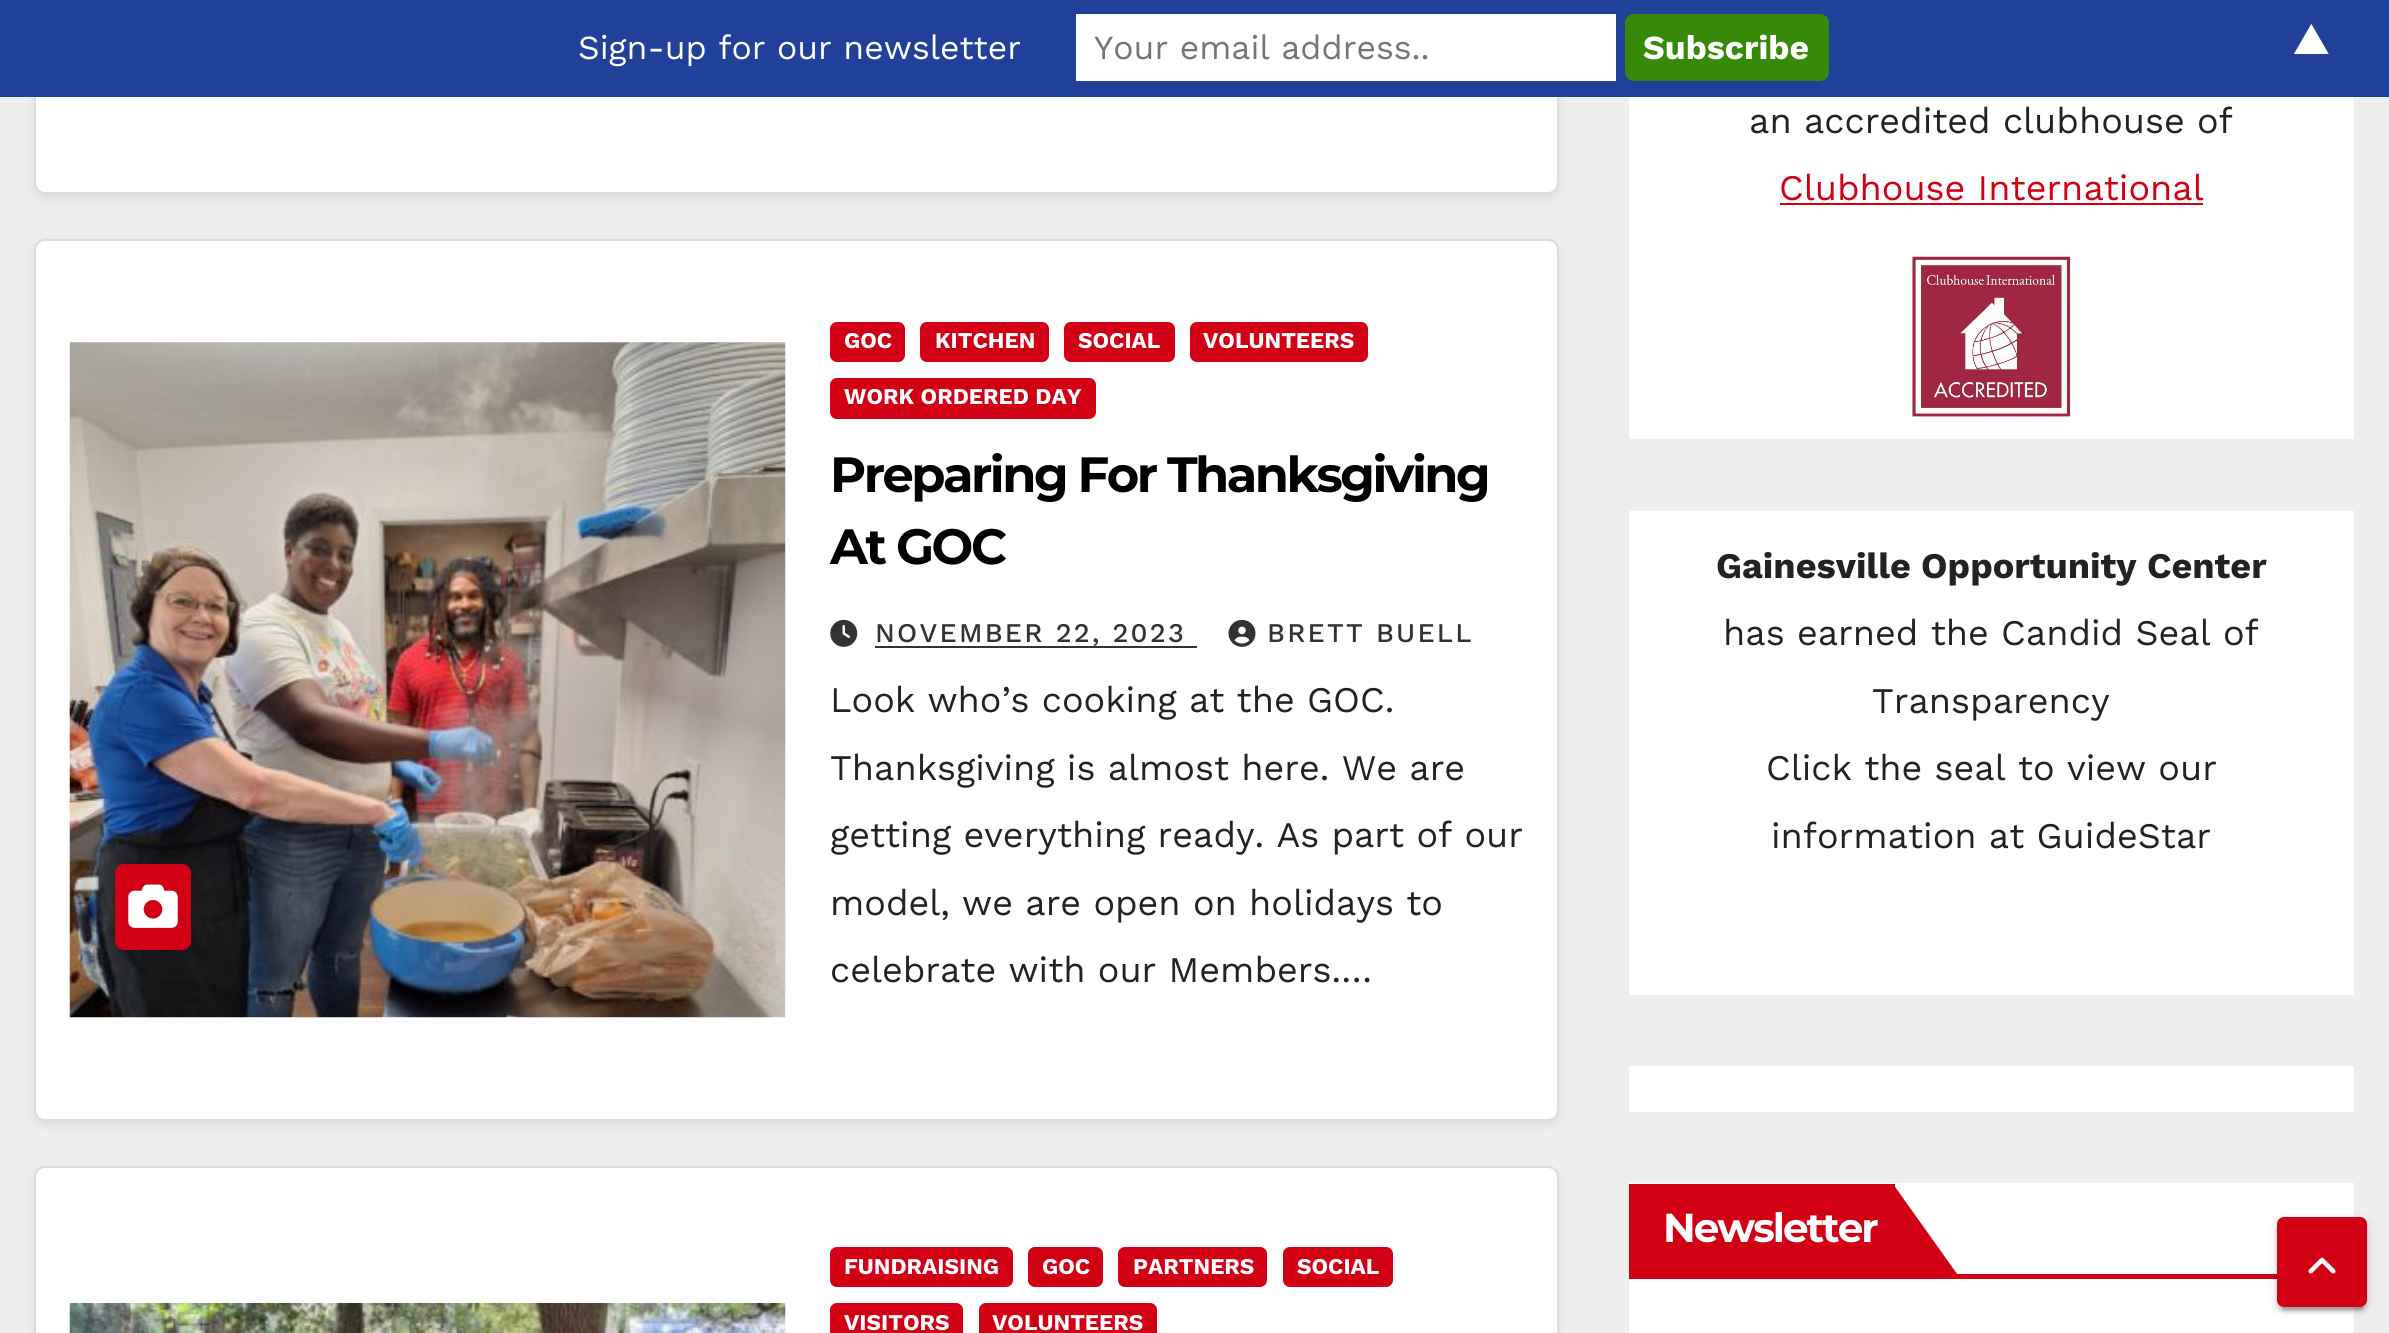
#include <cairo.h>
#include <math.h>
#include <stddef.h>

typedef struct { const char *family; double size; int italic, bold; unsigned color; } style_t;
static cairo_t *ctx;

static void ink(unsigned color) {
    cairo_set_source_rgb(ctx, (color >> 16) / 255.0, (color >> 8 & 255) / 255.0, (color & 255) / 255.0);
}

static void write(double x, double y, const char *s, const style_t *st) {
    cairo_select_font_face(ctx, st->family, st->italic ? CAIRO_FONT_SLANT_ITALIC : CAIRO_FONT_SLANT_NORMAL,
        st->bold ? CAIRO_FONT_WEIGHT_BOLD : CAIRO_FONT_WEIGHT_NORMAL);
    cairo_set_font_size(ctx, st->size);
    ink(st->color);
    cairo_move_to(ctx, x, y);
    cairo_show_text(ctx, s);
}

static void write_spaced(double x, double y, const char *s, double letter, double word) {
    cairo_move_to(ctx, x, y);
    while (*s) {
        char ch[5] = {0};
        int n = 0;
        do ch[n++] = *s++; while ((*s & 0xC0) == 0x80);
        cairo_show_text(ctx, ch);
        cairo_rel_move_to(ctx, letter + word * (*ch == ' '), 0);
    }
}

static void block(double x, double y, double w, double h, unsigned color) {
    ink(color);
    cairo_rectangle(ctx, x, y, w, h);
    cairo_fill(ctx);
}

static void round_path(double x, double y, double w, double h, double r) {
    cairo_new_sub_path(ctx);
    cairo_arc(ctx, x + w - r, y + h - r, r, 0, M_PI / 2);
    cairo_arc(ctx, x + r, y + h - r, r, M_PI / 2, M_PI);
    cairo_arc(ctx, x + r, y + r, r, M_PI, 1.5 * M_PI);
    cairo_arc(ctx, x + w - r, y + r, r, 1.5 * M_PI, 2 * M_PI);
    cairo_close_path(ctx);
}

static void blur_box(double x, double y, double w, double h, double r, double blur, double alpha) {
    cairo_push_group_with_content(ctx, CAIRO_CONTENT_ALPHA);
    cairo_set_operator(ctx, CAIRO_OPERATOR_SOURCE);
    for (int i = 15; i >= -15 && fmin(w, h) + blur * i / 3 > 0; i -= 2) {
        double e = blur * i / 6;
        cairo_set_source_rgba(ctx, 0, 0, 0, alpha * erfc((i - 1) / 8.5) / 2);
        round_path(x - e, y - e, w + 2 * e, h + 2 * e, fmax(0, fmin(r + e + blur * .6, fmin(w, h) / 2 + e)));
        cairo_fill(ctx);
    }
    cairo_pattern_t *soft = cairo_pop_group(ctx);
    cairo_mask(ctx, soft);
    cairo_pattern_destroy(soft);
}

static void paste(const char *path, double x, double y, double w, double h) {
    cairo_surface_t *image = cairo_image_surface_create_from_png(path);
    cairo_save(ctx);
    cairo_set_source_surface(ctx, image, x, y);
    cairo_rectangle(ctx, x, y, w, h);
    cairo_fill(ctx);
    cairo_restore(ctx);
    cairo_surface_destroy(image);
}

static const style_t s1 = {"Work Sans", 33.75, 0, 0, 0xffffff};
static const style_t s2 = {"Work Sans", 33.75, 0, 0, 0x757575};
static const style_t s3 = {"Work Sans", 33.75, 0, 1, 0xffffff};
static const style_t s4 = {"Work Sans", 45, 0, 0, 0xffffff};
static const style_t s5 = {"Work Sans", 22.5, 0, 1, 0xffffff};
static const style_t s6 = {"Work Sans", 36, 0, 0, 0x222222};
static const style_t s7 = {"Work Sans", 36, 0, 0, 0xd10014};
static const style_t s8 = {"Work Sans", 36, 0, 1, 0x222222};

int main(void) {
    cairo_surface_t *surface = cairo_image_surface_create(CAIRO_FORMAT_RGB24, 2389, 1333);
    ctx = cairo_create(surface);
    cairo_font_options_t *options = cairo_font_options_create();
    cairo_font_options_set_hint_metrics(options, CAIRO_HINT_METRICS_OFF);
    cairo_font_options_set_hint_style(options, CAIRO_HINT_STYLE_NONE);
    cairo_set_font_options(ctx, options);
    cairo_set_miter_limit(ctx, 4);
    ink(0xeeeeee);
    cairo_paint(ctx);
    ink(0x000000);
    blur_box(34, -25, 1525, 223, 11, 4.5, 0.08);
    ink(0xffffff);
    round_path(35, -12, 1523, 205, 10);
    cairo_fill_preserve(ctx);
    ink(0xdddcdc);
    cairo_stroke(ctx);
    block(0, 0, 2389, 97, 0x21409a);
    write(578, 59, "Sign-up for our newsletter", &s1);
    block(1076, 14, 540, 67, 0xffffff);
    write(1094, 59, "Your email address..", &s2);
    ink(0x378908);
    round_path(1626, 15, 202, 65, 8);
    cairo_fill_preserve(ctx);
    cairo_stroke(ctx);
    write(1643, 59, "Subscribe", &s3);
    write(2294, 54, "▲", &s4);
    ink(0x000000);
    blur_box(34, 243, 1525, 882, 11, 4.5, 0.08);
    ink(0xffffff);
    round_path(35, 240, 1523, 880, 10);
    cairo_fill_preserve(ctx);
    ink(0xdddcdc);
    cairo_stroke(ctx);
    paste("pic1.png", 69, 342, 717, 676);
    ink(0xd10014);
    round_path(115, 864, 76, 86, 9);
    cairo_fill(ctx);
    paste("pic2.png", 128, 884, 50, 44);
    round_path(830, 322, 75, 40, 7);
    cairo_fill(ctx);
    write(844, 348, "GOC", &s5);
    ink(0xd10014);
    round_path(920, 322, 129, 40, 7);
    cairo_fill(ctx);
    write(935, 348, "KITCHEN", &s5);
    ink(0xd10014);
    round_path(1064, 322, 111, 40, 7);
    cairo_fill(ctx);
    write(1078, 348, "SOCIAL", &s5);
    ink(0xd10014);
    round_path(1190, 322, 178, 40, 7);
    cairo_fill(ctx);
    write(1203, 348, "VOLUNTEERS", &s5);
    ink(0xd10014);
    round_path(830, 378, 266, 41, 7);
    cairo_fill(ctx);
    write(844, 404, "WORK ORDERED DAY", &s5);
    cairo_select_font_face(ctx, "Montserrat", CAIRO_FONT_SLANT_NORMAL, CAIRO_FONT_WEIGHT_BOLD);
    cairo_set_font_size(ctx, 49.5);
    ink(0x000000);
    write_spaced(830, 492, "Preparing For Thanksgiving", -2.5, 0);
    write_spaced(830, 564, "At GOC", -2.5, 0);
    paste("pic3.png", 830, 619, 28, 28);
    cairo_select_font_face(ctx, "Work Sans Medium", CAIRO_FONT_SLANT_NORMAL, CAIRO_FONT_WEIGHT_NORMAL);
    cairo_set_font_size(ctx, 27);
    ink(0x333333);
    write_spaced(875, 642, "NOVEMBER 22, 2023", 2.25, 0);
    block(875, 646, 322, 2, 0x333333);
    paste("pic4.png", 1228, 619, 28, 28);
    write_spaced(1267, 642, "BRETT BUELL", 2.25, 0);
    write(830, 712, "Look who’s cooking at the GOC.", &s6);
    write(830, 780, "Thanksgiving is almost here. We are", &s6);
    write(830, 847, "getting everything ready. As part of our", &s6);
    write(830, 915, "model, we are open on holidays to", &s6);
    write(830, 982, "celebrate with our Members.…", &s6);
    ink(0x000000);
    blur_box(34, 1170, 1525, 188, 11, 4.5, 0.08);
    ink(0xffffff);
    round_path(35, 1167, 1523, 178, 10);
    cairo_fill_preserve(ctx);
    ink(0xdddcdc);
    cairo_stroke(ctx);
    paste("pic5.png", 69, 1303, 717, 30);
    ink(0xd10014);
    round_path(830, 1247, 183, 40, 7);
    cairo_fill(ctx);
    write(844, 1274, "FUNDRAISING", &s5);
    ink(0xd10014);
    round_path(1028, 1247, 75, 40, 7);
    cairo_fill(ctx);
    write(1042, 1274, "GOC", &s5);
    ink(0xd10014);
    round_path(1118, 1247, 149, 40, 7);
    cairo_fill(ctx);
    write(1133, 1274, "PARTNERS", &s5);
    ink(0xd10014);
    round_path(1283, 1247, 110, 40, 7);
    cairo_fill(ctx);
    write(1297, 1274, "SOCIAL", &s5);
    ink(0xd10014);
    round_path(830, 1303, 133, 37, 7);
    cairo_fill(ctx);
    write(844, 1330, "VISITORS", &s5);
    ink(0xd10014);
    round_path(979, 1303, 178, 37, 7);
    cairo_fill(ctx);
    write(992, 1330, "VOLUNTEERS", &s5);
    block(1629, 97, 725, 342, 0xffffff);
    write(1749, 133, "an accredited clubhouse of", &s6);
    write(1779, 200, "Clubhouse International", &s7);
    block(1780, 203, 423, 2, 0xd10014);
    paste("pic6.png", 1912, 256, 159, 161);
    block(1629, 511, 725, 484, 0xffffff);
    write(1716, 578, "Gainesville Opportunity Center", &s8);
    write(1723, 645, "has earned the Candid Seal of", &s6);
    write(1872, 713, "Transparency", &s6);
    write(1766, 780, "Click the seal to view our", &s6);
    write(1771, 848, "information at GuideStar", &s6);
    block(1629, 1066, 725, 46, 0xffffff);
    block(1629, 1183, 725, 150, 0xffffff);
    block(1629, 1274, 648, 5, 0xd10014);
    block(1629, 1184, 266, 90, 0xd10014);
    cairo_select_font_face(ctx, "Montserrat", CAIRO_FONT_SLANT_NORMAL, CAIRO_FONT_WEIGHT_BOLD);
    cairo_set_font_size(ctx, 40.5);
    ink(0xffffff);
    write_spaced(1663, 1242, "Newsletter", -2, 0);
    ink(0xd10014);
    cairo_new_path(ctx);
    cairo_move_to(ctx, 1893, 1184);
    cairo_line_to(ctx, 1892, 1184);
    cairo_line_to(ctx, 1892, 1278);
    cairo_line_to(ctx, 1960, 1278);
    cairo_close_path(ctx);
    cairo_fill(ctx);
    cairo_new_path(ctx);
    cairo_move_to(ctx, 1893, 1185);
    cairo_line_to(ctx, 1892, 1184);
    cairo_line_to(ctx, 1892, 1278);
    cairo_line_to(ctx, 1899, 1271);
    cairo_line_to(ctx, 1899, 1193);
    cairo_close_path(ctx);
    cairo_fill(ctx);
    ink(0x000000);
    blur_box(2277, 1220, 90, 90, 7, 5.5, 0.12);
    blur_box(2282, 1229, 81, 81, 2, 1, 0.2);
    blur_box(2277, 1222, 90, 90, 7, 2, 0.14);
    ink(0xd10014);
    round_path(2279.5, 1219.5, 85, 85, 4.5);
    cairo_fill_preserve(ctx);
    cairo_set_line_width(ctx, 5);
    cairo_stroke(ctx);
    paste("pic7.png", 2308, 1257, 28, 17);
    cairo_surface_write_to_png(surface, "screenshot.png");
    cairo_font_options_destroy(options);
    cairo_destroy(ctx);
    cairo_surface_destroy(surface);
    return 0;
}
